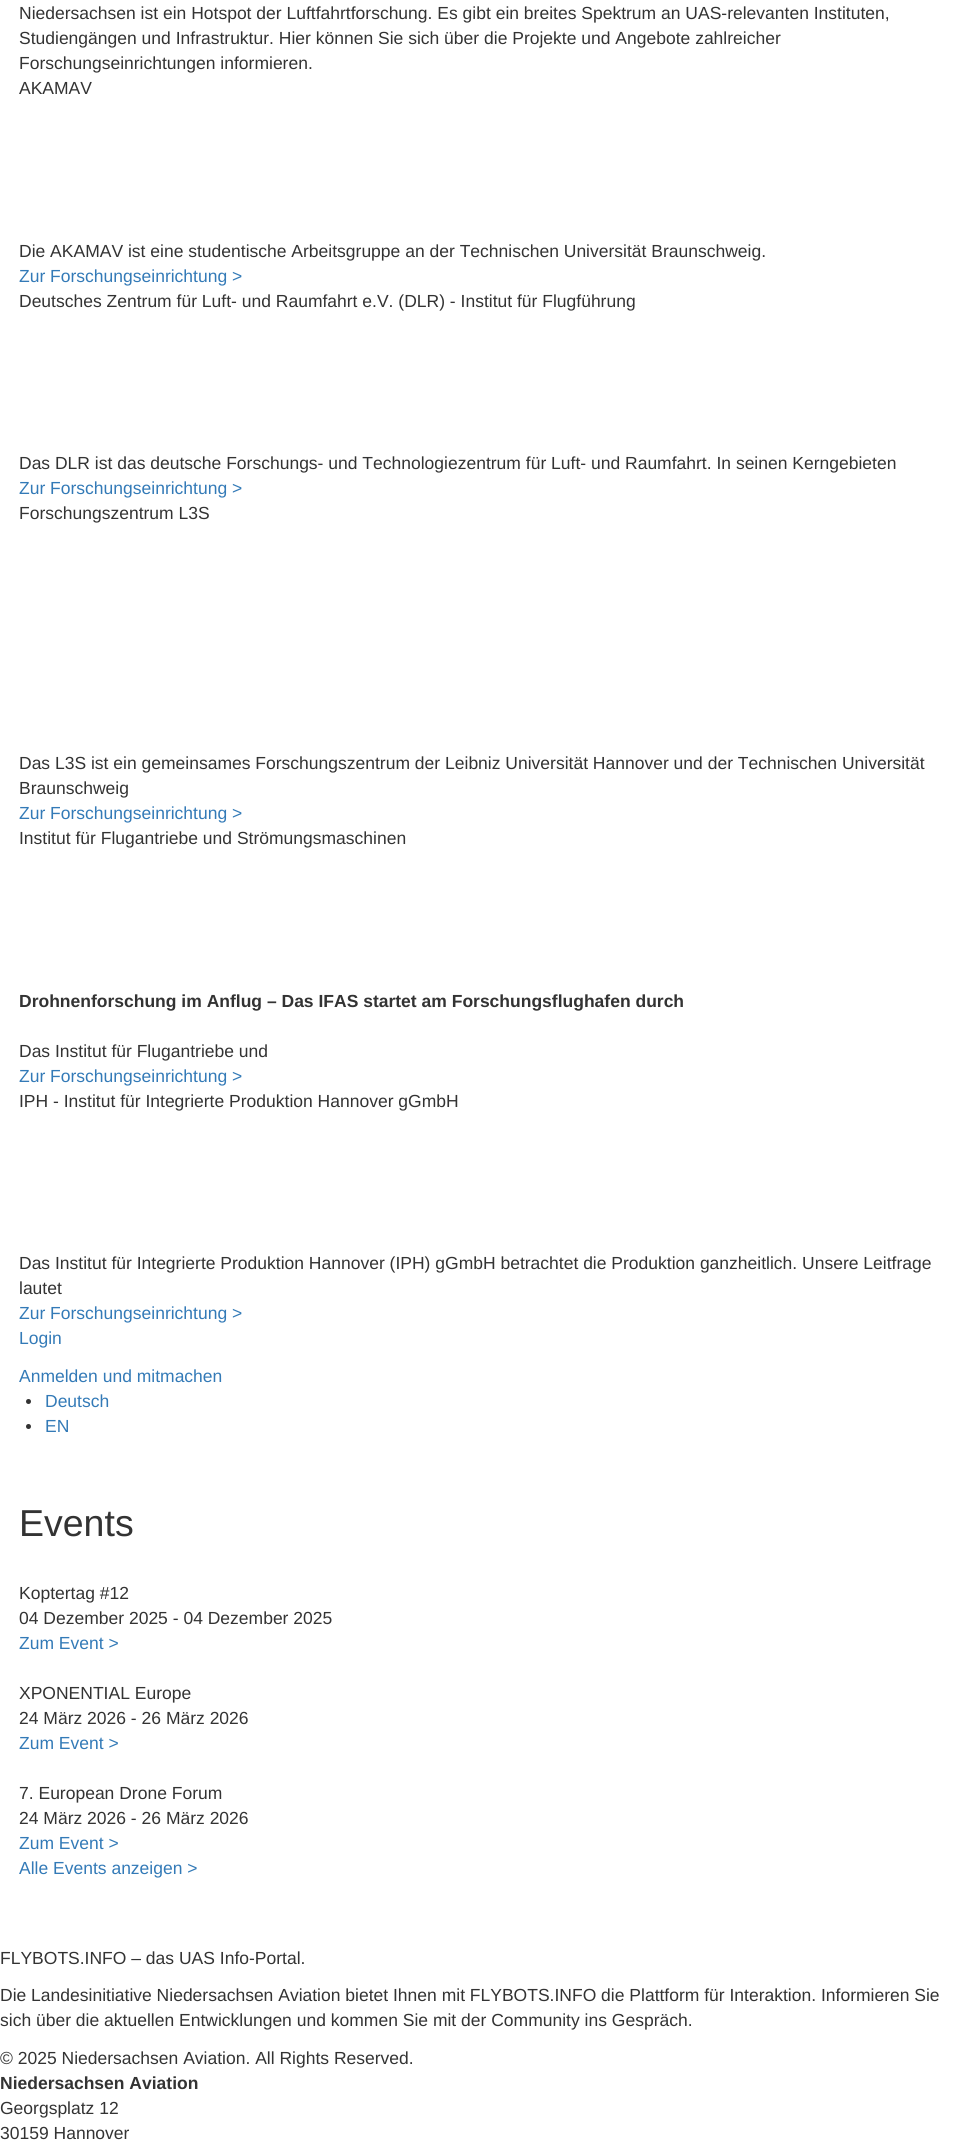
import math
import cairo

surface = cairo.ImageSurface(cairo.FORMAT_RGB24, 956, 2140)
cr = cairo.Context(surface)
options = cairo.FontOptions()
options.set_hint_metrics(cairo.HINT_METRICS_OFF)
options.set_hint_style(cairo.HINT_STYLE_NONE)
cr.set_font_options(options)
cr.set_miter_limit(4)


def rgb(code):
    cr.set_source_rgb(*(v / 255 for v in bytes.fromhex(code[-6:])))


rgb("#ffffff")
cr.paint()
rgb("#333333")
cr.arc(28.5, 1401.5, 2.5, 0, 2 * math.pi)
cr.fill()
cr.arc(28.5, 1426.5, 2.5, 0, 2 * math.pi)
cr.fill()
cr.select_font_face("Liberation Sans")
cr.set_font_size(17.5)
for x, y, s in [
    (19, 19, "Niedersachsen ist ein Hotspot der Luftfahrtforschung. Es gibt ein breites Spektrum an UAS-relevanten Instituten,"),
    (19, 44, "Studiengängen und Infrastruktur. Hier können Sie sich über die Projekte und Angebote zahlreicher"),
    (19, 69, "Forschungseinrichtungen informieren."),
    (19, 94, "AKAMAV"),
    (19, 257, "Die AKAMAV ist eine studentische Arbeitsgruppe an der Technischen Universität Braunschweig."),
]:
    cr.move_to(x, y)
    cr.show_text(s)
rgb("#337ab7")
cr.move_to(19, 282)
cr.show_text("Zur Forschungseinrichtung >")
rgb("#333333")
cr.move_to(19, 307)
cr.show_text("Deutsches Zentrum für Luft- und Raumfahrt e.V. (DLR) - Institut für Flugführung")
cr.move_to(19, 469)
cr.show_text("Das DLR ist das deutsche Forschungs- und Technologiezentrum für Luft- und Raumfahrt. In seinen Kerngebieten")
rgb("#337ab7")
cr.move_to(19, 494)
cr.show_text("Zur Forschungseinrichtung >")
rgb("#333333")
for x, y, s in [
    (19, 519, "Forschungszentrum L3S"),
    (19, 769, "Das L3S ist ein gemeinsames Forschungszentrum der Leibniz Universität Hannover und der Technischen Universität"),
    (19, 794, "Braunschweig"),
]:
    cr.move_to(x, y)
    cr.show_text(s)
rgb("#337ab7")
cr.move_to(19, 819)
cr.show_text("Zur Forschungseinrichtung >")
rgb("#333333")
cr.move_to(19, 844)
cr.show_text("Institut für Flugantriebe und Strömungsmaschinen")
cr.select_font_face("Liberation Sans", cairo.FONT_SLANT_NORMAL, cairo.FONT_WEIGHT_BOLD)
cr.move_to(19, 1007)
cr.show_text("Drohnenforschung im Anflug – Das IFAS startet am Forschungsflughafen durch")
cr.select_font_face("Liberation Sans")
cr.move_to(19, 1057)
cr.show_text("Das Institut für Flugantriebe und")
rgb("#337ab7")
cr.move_to(19, 1082)
cr.show_text("Zur Forschungseinrichtung >")
rgb("#333333")
for x, y, s in [
    (19, 1107, "IPH - Institut für Integrierte Produktion Hannover gGmbH"),
    (19, 1269, "Das Institut für Integrierte Produktion Hannover (IPH) gGmbH betrachtet die Produktion ganzheitlich. Unsere Leitfrage"),
    (19, 1294, "lautet"),
]:
    cr.move_to(x, y)
    cr.show_text(s)
rgb("#337ab7")
for x, y, s in [
    (19, 1319, "Zur Forschungseinrichtung >"),
    (19, 1344, "Login"),
    (19, 1382, "Anmelden und mitmachen"),
    (45, 1407, "Deutsch"),
    (45, 1432, "EN"),
]:
    cr.move_to(x, y)
    cr.show_text(s)
cr.set_font_size(37.5)
rgb("#333333")
cr.move_to(19, 1536)
cr.show_text("Events")
cr.set_font_size(17.5)
cr.move_to(19, 1599)
cr.show_text("Koptertag #12")
cr.move_to(19, 1624)
cr.show_text("04 Dezember 2025 - 04 Dezember 2025")
rgb("#337ab7")
cr.move_to(19, 1649)
cr.show_text("Zum Event >")
rgb("#333333")
cr.move_to(19, 1699)
cr.show_text("XPONENTIAL Europe")
cr.move_to(19, 1724)
cr.show_text("24 März 2026 - 26 März 2026")
rgb("#337ab7")
cr.move_to(19, 1749)
cr.show_text("Zum Event >")
rgb("#333333")
cr.move_to(19, 1799)
cr.show_text("7. European Drone Forum")
cr.move_to(19, 1824)
cr.show_text("24 März 2026 - 26 März 2026")
rgb("#337ab7")
cr.move_to(19, 1849)
cr.show_text("Zum Event >")
cr.move_to(19, 1874)
cr.show_text("Alle Events anzeigen >")
rgb("#333333")
for x, y, s in [
    (0, 1964, "FLYBOTS.INFO – das UAS Info-Portal."),
    (0, 2001, "Die Landesinitiative Niedersachsen Aviation bietet Ihnen mit FLYBOTS.INFO die Plattform für Interaktion. Informieren Sie"),
    (0, 2026, "sich über die aktuellen Entwicklungen und kommen Sie mit der Community ins Gespräch."),
    (0, 2064, "© 2025 Niedersachsen Aviation. All Rights Reserved."),
]:
    cr.move_to(x, y)
    cr.show_text(s)
cr.select_font_face("Liberation Sans", cairo.FONT_SLANT_NORMAL, cairo.FONT_WEIGHT_BOLD)
cr.move_to(0, 2089)
cr.show_text("Niedersachsen Aviation")
cr.select_font_face("Liberation Sans")
cr.move_to(0, 2114)
cr.show_text("Georgsplatz 12")
cr.move_to(0, 2139)
cr.show_text("30159 Hannover")
surface.write_to_png("page.png")
